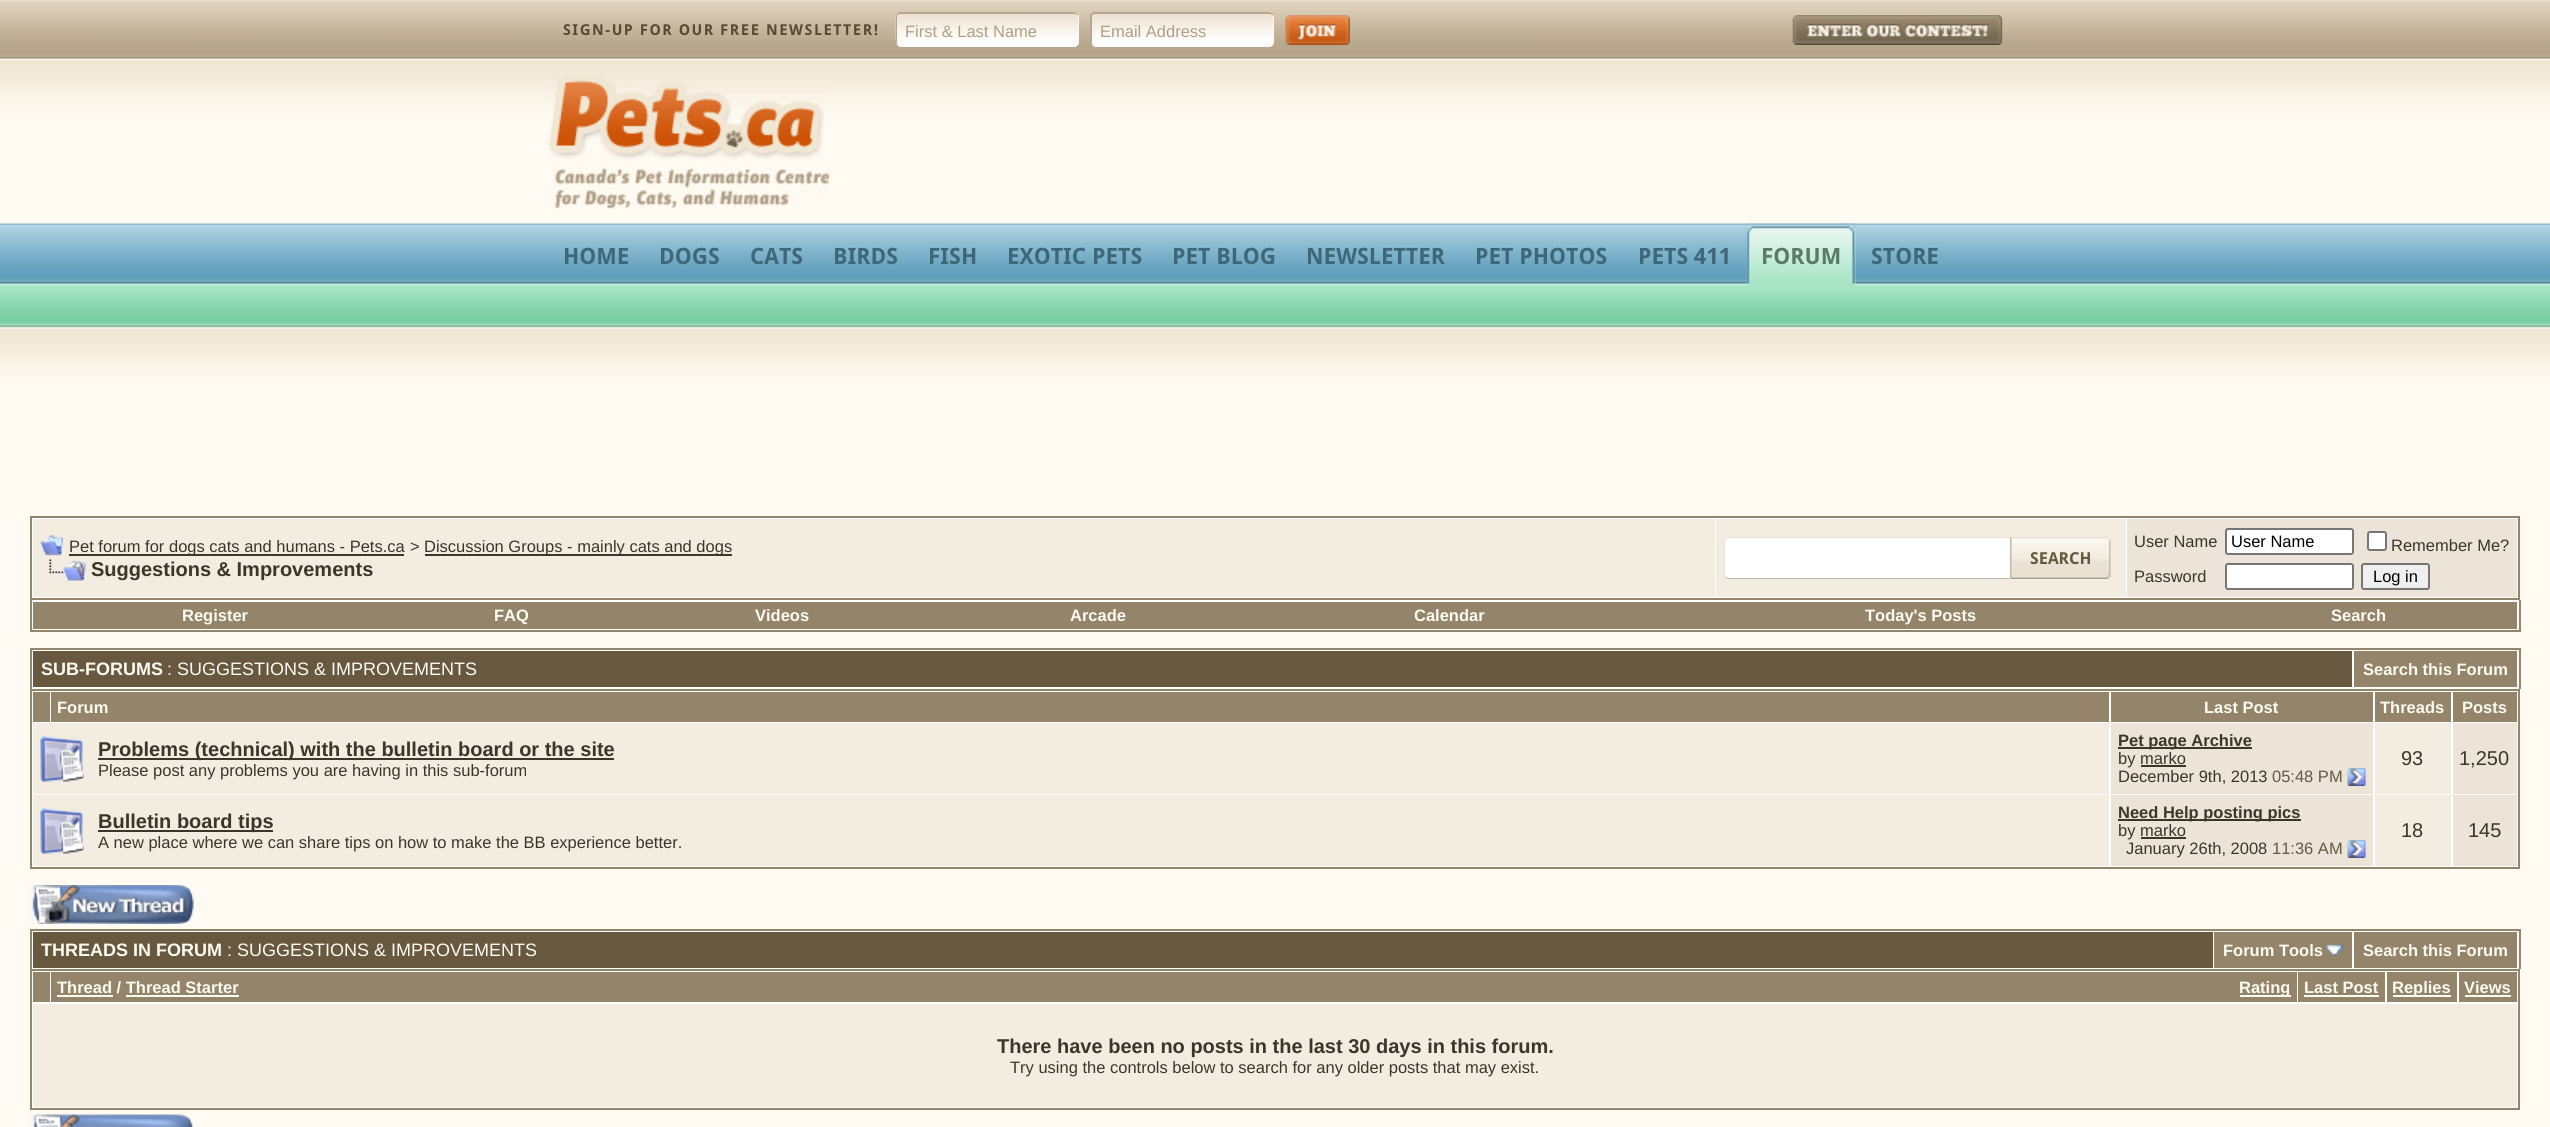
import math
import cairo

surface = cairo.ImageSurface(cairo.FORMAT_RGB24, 2550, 1127)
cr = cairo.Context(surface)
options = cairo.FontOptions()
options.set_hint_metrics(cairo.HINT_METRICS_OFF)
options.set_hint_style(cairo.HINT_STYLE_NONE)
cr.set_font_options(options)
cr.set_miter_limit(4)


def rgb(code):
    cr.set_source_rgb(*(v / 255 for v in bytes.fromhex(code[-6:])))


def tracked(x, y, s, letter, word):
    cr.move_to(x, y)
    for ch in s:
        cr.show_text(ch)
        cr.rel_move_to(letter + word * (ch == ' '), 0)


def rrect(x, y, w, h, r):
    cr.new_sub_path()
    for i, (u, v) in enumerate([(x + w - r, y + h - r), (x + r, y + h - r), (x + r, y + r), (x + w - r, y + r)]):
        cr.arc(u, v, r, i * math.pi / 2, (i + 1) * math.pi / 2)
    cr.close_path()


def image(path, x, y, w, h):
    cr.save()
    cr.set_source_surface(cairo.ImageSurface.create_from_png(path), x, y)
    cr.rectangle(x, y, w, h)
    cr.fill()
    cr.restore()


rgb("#fffaf2")
cr.paint()
image("img/1.png", 0, 0, 2550, 378)
rgb("#fefdfc")
rrect(896, 12, 183, 35, 5)
cr.fill()
image("img/2.png", 895, 13, 184, 28)
rgb("#b6a68f")
cr.set_fill_rule(cairo.FILL_RULE_EVEN_ODD)
cr.new_path()
cr.move_to(900, 12)
cr.line_to(1074, 12)
cr.curve_to(1076, 12, 1078, 14, 1078, 16)
cr.line_to(1078, 42)
cr.curve_to(1078, 44, 1076, 46, 1074, 46)
cr.line_to(900, 46)
cr.curve_to(898, 46, 896, 44, 896, 42)
cr.line_to(896, 16)
cr.curve_to(896, 14, 898, 12, 900, 12)
cr.close_path()
cr.move_to(900, 14)
cr.line_to(1074, 14)
cr.curve_to(1076, 14, 1078, 15, 1078, 16)
cr.line_to(1078, 42)
cr.curve_to(1078, 44, 1076, 46, 1074, 46)
cr.line_to(900, 46)
cr.curve_to(898, 46, 897, 44, 897, 42)
cr.line_to(897, 16)
cr.curve_to(897, 15, 898, 14, 900, 14)
cr.close_path()
cr.fill()
rgb("#fefdfc")
rrect(1091, 12, 183, 35, 5)
cr.fill()
image("img/3.png", 1090, 13, 184, 28)
rgb("#b6a68f")
cr.new_path()
cr.move_to(1095, 12)
cr.line_to(1269, 12)
cr.curve_to(1271, 12, 1274, 14, 1274, 16)
cr.line_to(1274, 42)
cr.curve_to(1274, 44, 1271, 46, 1269, 46)
cr.line_to(1095, 46)
cr.curve_to(1093, 46, 1090, 44, 1090, 42)
cr.line_to(1090, 16)
cr.curve_to(1090, 14, 1093, 12, 1095, 12)
cr.close_path()
cr.move_to(1095, 14)
cr.line_to(1269, 14)
cr.curve_to(1271, 14, 1274, 15, 1274, 16)
cr.line_to(1274, 42)
cr.curve_to(1274, 44, 1271, 46, 1269, 46)
cr.line_to(1095, 46)
cr.curve_to(1093, 46, 1092, 44, 1092, 42)
cr.line_to(1092, 16)
cr.curve_to(1092, 15, 1093, 14, 1095, 14)
cr.close_path()
cr.fill()
image("img/4.png", 1285, 15, 65, 30)
image("img/5.png", 1792, 15, 211, 30)
image("img/6.png", 548, 74, 282, 135)
image("img/7.png", 1746, 223, 110, 64)
image("img/8.png", 1840, 223, 16, 63)
rgb("#ffffff")
cr.rectangle(31, 517, 2488, 82)
cr.fill_preserve()
rgb("#94846a")
cr.stroke()
rgb("#f3ede1")
cr.rectangle(33, 519, 1682, 78)
cr.fill()
image("img/9.png", 40, 535, 23, 21)
rgb("#3b352a")
cr.rectangle(69, 554, 335, 2)
cr.fill()
cr.rectangle(425, 554, 307, 2)
cr.fill()
image("img/10.png", 49, 559, 37, 22)
rgb("#f3ede1")
cr.rectangle(1716, 519, 410, 78)
cr.fill()
rgb("#ffffff")
cr.new_path()
cr.move_to(1729, 537)
cr.line_to(2012, 537)
cr.line_to(2012, 579)
cr.line_to(1729, 579)
cr.curve_to(1726, 579, 1724, 577, 1724, 574)
cr.line_to(1724, 542)
cr.curve_to(1724, 539, 1726, 537, 1729, 537)
cr.close_path()
cr.fill()
rgb("#e7dfd2")
cr.set_fill_rule(cairo.FILL_RULE_WINDING)
cr.new_path()
cr.move_to(1728, 537)
cr.curve_to(1727, 537, 1726, 538, 1725, 539)
cr.line_to(1726, 539)
cr.line_to(1728, 538)
cr.line_to(2010, 538)
cr.line_to(2012, 537)
cr.close_path()
cr.fill()
rgb("#c0baaa")
cr.new_path()
cr.move_to(2012, 537)
cr.line_to(2012, 579)
cr.line_to(2010, 578)
cr.line_to(2010, 538)
cr.close_path()
cr.fill()
cr.new_path()
cr.move_to(2012, 579)
cr.line_to(2010, 578)
cr.line_to(1728, 578)
cr.line_to(1726, 577)
cr.line_to(1725, 577)
cr.curve_to(1726, 578, 1727, 579, 1728, 579)
cr.close_path()
cr.fill()
rgb("#e7dfd4")
cr.new_path()
cr.move_to(1725, 538.5)
cr.curve_to(1724.5, 539.5, 1724, 540.5, 1724, 542)
cr.line_to(1724, 574)
cr.curve_to(1724, 575.5, 1724.5, 576.5, 1725, 577.5)
cr.line_to(1726, 577)
cr.curve_to(1725, 576, 1725, 575, 1725, 574)
cr.line_to(1725, 542)
cr.curve_to(1725, 541, 1725, 540, 1726, 539)
cr.close_path()
cr.fill()
image("img/11.png", 2011, 537, 100, 42)
rgb("#ece4d9")
cr.rectangle(2127, 519, 390, 78)
cr.fill()
rgb("#ffffff")
rrect(2226, 529, 127, 25, 2)
cr.fill_preserve()
rgb("#767676")
cr.stroke()
rgb("#ffffff")
rrect(2368, 532, 18, 18, 2)
cr.fill_preserve()
rgb("#767676")
cr.stroke()
rgb("#ffffff")
rrect(2226, 564, 127, 25, 2)
cr.fill_preserve()
rgb("#767676")
cr.stroke()
rgb("#efefef")
rrect(2362, 564, 67, 25, 2)
cr.fill_preserve()
rgb("#767676")
cr.stroke()
for x, y, w, h, color in [
    (32, 600, 2487, 30, "#ffffff"),
    (2519, 600, 2, 32, "#94846a"),
    (30, 630, 2490, 2, "#94846a"),
    (30, 600, 2, 32, "#94846a"),
    (33, 602, 2484, 27, "#94846a"),
    (32, 650, 2487, 39, "#ffffff"),
    (30, 648, 2490, 2, "#94846a"),
    (2519, 648, 2, 41, "#94846a"),
    (30, 648, 2, 41, "#94846a"),
    (33, 651, 2319, 36, "#67583f"),
    (2354, 651, 163, 36, "#94846a"),
]:
    rgb(color)
    cr.rectangle(x, y, w, h)
    cr.fill()
rgb("#ffffff")
cr.rectangle(31, 690, 2488, 178)
cr.fill_preserve()
rgb("#94846a")
cr.stroke()
for x, y, w, h, color in [
    (33, 692, 17, 30, "#94846a"),
    (51, 692, 2058, 30, "#94846a"),
    (2111, 692, 262, 30, "#94846a"),
    (2375, 692, 76, 30, "#94846a"),
    (2453, 692, 64, 30, "#94846a"),
    (33, 723, 2076, 71, "#f3ede1"),
]:
    rgb(color)
    cr.rectangle(x, y, w, h)
    cr.fill()
image("img/12.png", 40, 736, 44, 46)
for x, y, w, h, color in [
    (98, 758, 516, 2, "#3b352a"),
    (2111, 723, 262, 71, "#ece4d9"),
    (2118, 747, 134, 2, "#3b352a"),
    (2141, 765, 45, 2, "#3b352a"),
]:
    rgb(color)
    cr.rectangle(x, y, w, h)
    cr.fill()
image("img/13.png", 2347, 768, 19, 18)
for x, y, w, h, color in [
    (2375, 723, 76, 71, "#f3ede1"),
    (2453, 723, 64, 71, "#ece4d9"),
    (33, 795, 2076, 71, "#f3ede1"),
]:
    rgb(color)
    cr.rectangle(x, y, w, h)
    cr.fill()
image("img/12.png", 40, 808, 44, 46)
for x, y, w, h, color in [
    (98, 830, 175, 2, "#3b352a"),
    (2111, 795, 262, 71, "#ece4d9"),
    (2118, 819, 183, 2, "#3b352a"),
    (2141, 837, 45, 2, "#3b352a"),
]:
    rgb(color)
    cr.rectangle(x, y, w, h)
    cr.fill()
image("img/13.png", 2347, 840, 19, 18)
rgb("#f3ede1")
cr.rectangle(2375, 795, 76, 71)
cr.fill()
rgb("#ece4d9")
cr.rectangle(2453, 795, 64, 71)
cr.fill()
image("img/14.png", 31, 885, 163, 39)
for x, y, w, h, color in [
    (32, 931, 2487, 38, "#ffffff"),
    (30, 929, 2490, 2, "#94846a"),
    (2519, 929, 2, 40, "#94846a"),
    (30, 929, 2, 40, "#94846a"),
    (33, 932, 2180, 36, "#67583f"),
    (2214, 932, 138, 36, "#94846a"),
]:
    rgb(color)
    cr.rectangle(x, y, w, h)
    cr.fill()
image("img/15.png", 2326, 945, 17, 11)
cr.rectangle(2354, 932, 163, 36)
cr.fill()
rgb("#ffffff")
cr.rectangle(31, 970, 2488, 139)
cr.fill_preserve()
rgb("#94846a")
cr.stroke()
for x, y, w, h, color in [
    (33, 972, 17, 30, "#94846a"),
    (51, 972, 2246, 30, "#94846a"),
    (57, 995, 56, 2, "#fffaf2"),
    (2240, 995, 51, 2, "#fffaf2"),
    (126, 995, 113, 2, "#fffaf2"),
    (2298, 972, 87, 30, "#94846a"),
    (2304, 995, 75, 2, "#fffaf2"),
    (2387, 972, 70, 30, "#94846a"),
    (2393, 995, 58, 2, "#fffaf2"),
    (2459, 972, 58, 30, "#94846a"),
    (2465, 995, 46, 2, "#fffaf2"),
    (33, 1004, 2484, 103, "#f3ede1"),
]:
    rgb(color)
    cr.rectangle(x, y, w, h)
    cr.fill()
image("img/16.png", 31, 1114, 163, 13)
cr.select_font_face("Droid Sans", cairo.FONT_SLANT_NORMAL, cairo.FONT_WEIGHT_BOLD)
cr.set_font_size(15)
rgb("#584b35")
tracked(563, 35, "SIGN-UP FOR OUR FREE NEWSLETTER!", 1.5, 0)
cr.select_font_face("Liberation Sans")
cr.set_font_size(16.5)
rgb("#b09f82")
cr.move_to(905, 37)
cr.show_text("First & Last Name")
cr.move_to(1100, 37)
cr.show_text("Email Address")
cr.select_font_face("Droid Sans", cairo.FONT_SLANT_NORMAL, cairo.FONT_WEIGHT_BOLD)
cr.set_font_size(22.5)
rgb("#3e687a")
for x, y, s in [
    (563, 264, "HOME"),
    (659, 264, "DOGS"),
    (750, 264, "CATS"),
    (833, 264, "BIRDS"),
    (928, 264, "FISH"),
    (1007, 264, "EXOTIC PETS"),
    (1172, 264, "PET BLOG"),
    (1306, 264, "NEWSLETTER"),
    (1475, 264, "PET PHOTOS"),
    (1638, 264, "PETS 411"),
]:
    cr.move_to(x, y)
    cr.show_text(s)
rgb("#5a7b6b")
cr.move_to(1761, 264)
cr.show_text("FORUM")
rgb("#3e687a")
cr.move_to(1871, 264)
cr.show_text("STORE")
cr.select_font_face("Liberation Sans")
cr.set_font_size(16.5)
rgb("#3b352a")
for x, y, s in [
    (69, 552, "Pet forum for dogs cats and humans - Pets.ca"),
    (410, 552, ">"),
    (424, 552, "Discussion Groups - mainly cats and dogs"),
]:
    cr.move_to(x, y)
    cr.show_text(s)
cr.select_font_face("Liberation Sans", cairo.FONT_SLANT_NORMAL, cairo.FONT_WEIGHT_BOLD)
cr.set_font_size(20)
cr.move_to(91, 576)
cr.show_text("Suggestions & Improvements")
cr.select_font_face("Droid Sans", cairo.FONT_SLANT_NORMAL, cairo.FONT_WEIGHT_BOLD)
cr.set_font_size(16.5)
rgb("#67583f")
cr.move_to(2030, 564)
cr.show_text("SEARCH")
cr.select_font_face("Liberation Sans")
rgb("#3b352a")
cr.move_to(2134, 547)
cr.show_text("User Name")
rgb("#000000")
cr.move_to(2231, 547)
cr.show_text("User Name")
rgb("#3b352a")
cr.move_to(2391, 551)
cr.show_text("Remember Me?")
cr.move_to(2134, 582)
cr.show_text("Password")
rgb("#000000")
cr.move_to(2373, 582)
cr.show_text("Log in")
cr.select_font_face("Liberation Sans", cairo.FONT_SLANT_NORMAL, cairo.FONT_WEIGHT_BOLD)
rgb("#fffaf2")
for x, y, s in [
    (182, 621, "Register"),
    (494, 621, "FAQ"),
    (755, 621, "Videos"),
    (1070, 621, "Arcade"),
    (1414, 621, "Calendar"),
    (1865, 621, "Today's Posts"),
    (2331, 621, "Search"),
]:
    cr.move_to(x, y)
    cr.show_text(s)
cr.set_font_size(18)
cr.move_to(41, 675)
cr.show_text("SUB-FORUMS")
cr.select_font_face("Liberation Sans")
cr.move_to(167, 675)
cr.show_text(": SUGGESTIONS & IMPROVEMENTS")
cr.select_font_face("Liberation Sans", cairo.FONT_SLANT_NORMAL, cairo.FONT_WEIGHT_BOLD)
cr.set_font_size(16.5)
for x, y, s in [
    (2363, 675, "Search this Forum"),
    (57, 713, "Forum"),
    (2204, 713, "Last Post"),
    (2380, 713, "Threads"),
    (2462, 713, "Posts"),
]:
    cr.move_to(x, y)
    cr.show_text(s)
cr.set_font_size(20)
rgb("#3b352a")
cr.move_to(98, 756)
cr.show_text("Problems (technical) with the bulletin board or the site")
cr.select_font_face("Liberation Sans")
cr.set_font_size(16.5)
cr.move_to(98, 776)
cr.show_text("Please post any problems you are having in this sub-forum")
cr.select_font_face("Liberation Sans", cairo.FONT_SLANT_NORMAL, cairo.FONT_WEIGHT_BOLD)
cr.move_to(2118, 746)
cr.show_text("Pet page Archive")
cr.select_font_face("Liberation Sans")
cr.move_to(2118, 764)
cr.show_text("by marko")
cr.move_to(2118, 782)
cr.show_text("December 9th, 2013")
rgb("#67583f")
cr.move_to(2272, 782)
cr.show_text("05:48 PM")
cr.set_font_size(20)
rgb("#3b352a")
cr.move_to(2401, 765)
cr.show_text("93")
cr.move_to(2459, 765)
cr.show_text("1,250")
cr.select_font_face("Liberation Sans", cairo.FONT_SLANT_NORMAL, cairo.FONT_WEIGHT_BOLD)
cr.move_to(98, 828)
cr.show_text("Bulletin board tips")
cr.select_font_face("Liberation Sans")
cr.set_font_size(16.5)
cr.move_to(98, 848)
cr.show_text("A new place where we can share tips on how to make the BB experience better.")
cr.select_font_face("Liberation Sans", cairo.FONT_SLANT_NORMAL, cairo.FONT_WEIGHT_BOLD)
cr.move_to(2118, 818)
cr.show_text("Need Help posting pics")
cr.select_font_face("Liberation Sans")
cr.move_to(2118, 836)
cr.show_text("by marko")
cr.move_to(2126, 854)
cr.show_text("January 26th, 2008")
rgb("#67583f")
cr.move_to(2272, 854)
cr.show_text("11:36 AM")
cr.set_font_size(20)
rgb("#3b352a")
cr.move_to(2401, 837)
cr.show_text("18")
cr.move_to(2468, 837)
cr.show_text("145")
cr.select_font_face("Liberation Sans", cairo.FONT_SLANT_NORMAL, cairo.FONT_WEIGHT_BOLD)
cr.set_font_size(18)
rgb("#fffaf2")
cr.move_to(41, 956)
cr.show_text("THREADS IN FORUM")
cr.select_font_face("Liberation Sans")
cr.move_to(227, 956)
cr.show_text(": SUGGESTIONS & IMPROVEMENTS")
cr.select_font_face("Liberation Sans", cairo.FONT_SLANT_NORMAL, cairo.FONT_WEIGHT_BOLD)
cr.set_font_size(16.5)
for x, y, s in [
    (2223, 956, "Forum Tools"),
    (2363, 956, "Search this Forum"),
    (57, 993, "Thread / Thread Starter"),
    (2239, 993, "Rating"),
    (2304, 993, "Last Post"),
    (2392, 993, "Replies"),
    (2464, 993, "Views"),
]:
    cr.move_to(x, y)
    cr.show_text(s)
cr.set_font_size(20)
rgb("#3b352a")
cr.move_to(997, 1053)
cr.show_text("There have been no posts in the last 30 days in this forum.")
cr.select_font_face("Liberation Sans")
cr.set_font_size(16.5)
cr.move_to(1010, 1073)
cr.show_text("Try using the controls below to search for any older posts that may exist.")
surface.write_to_png("page.png")
